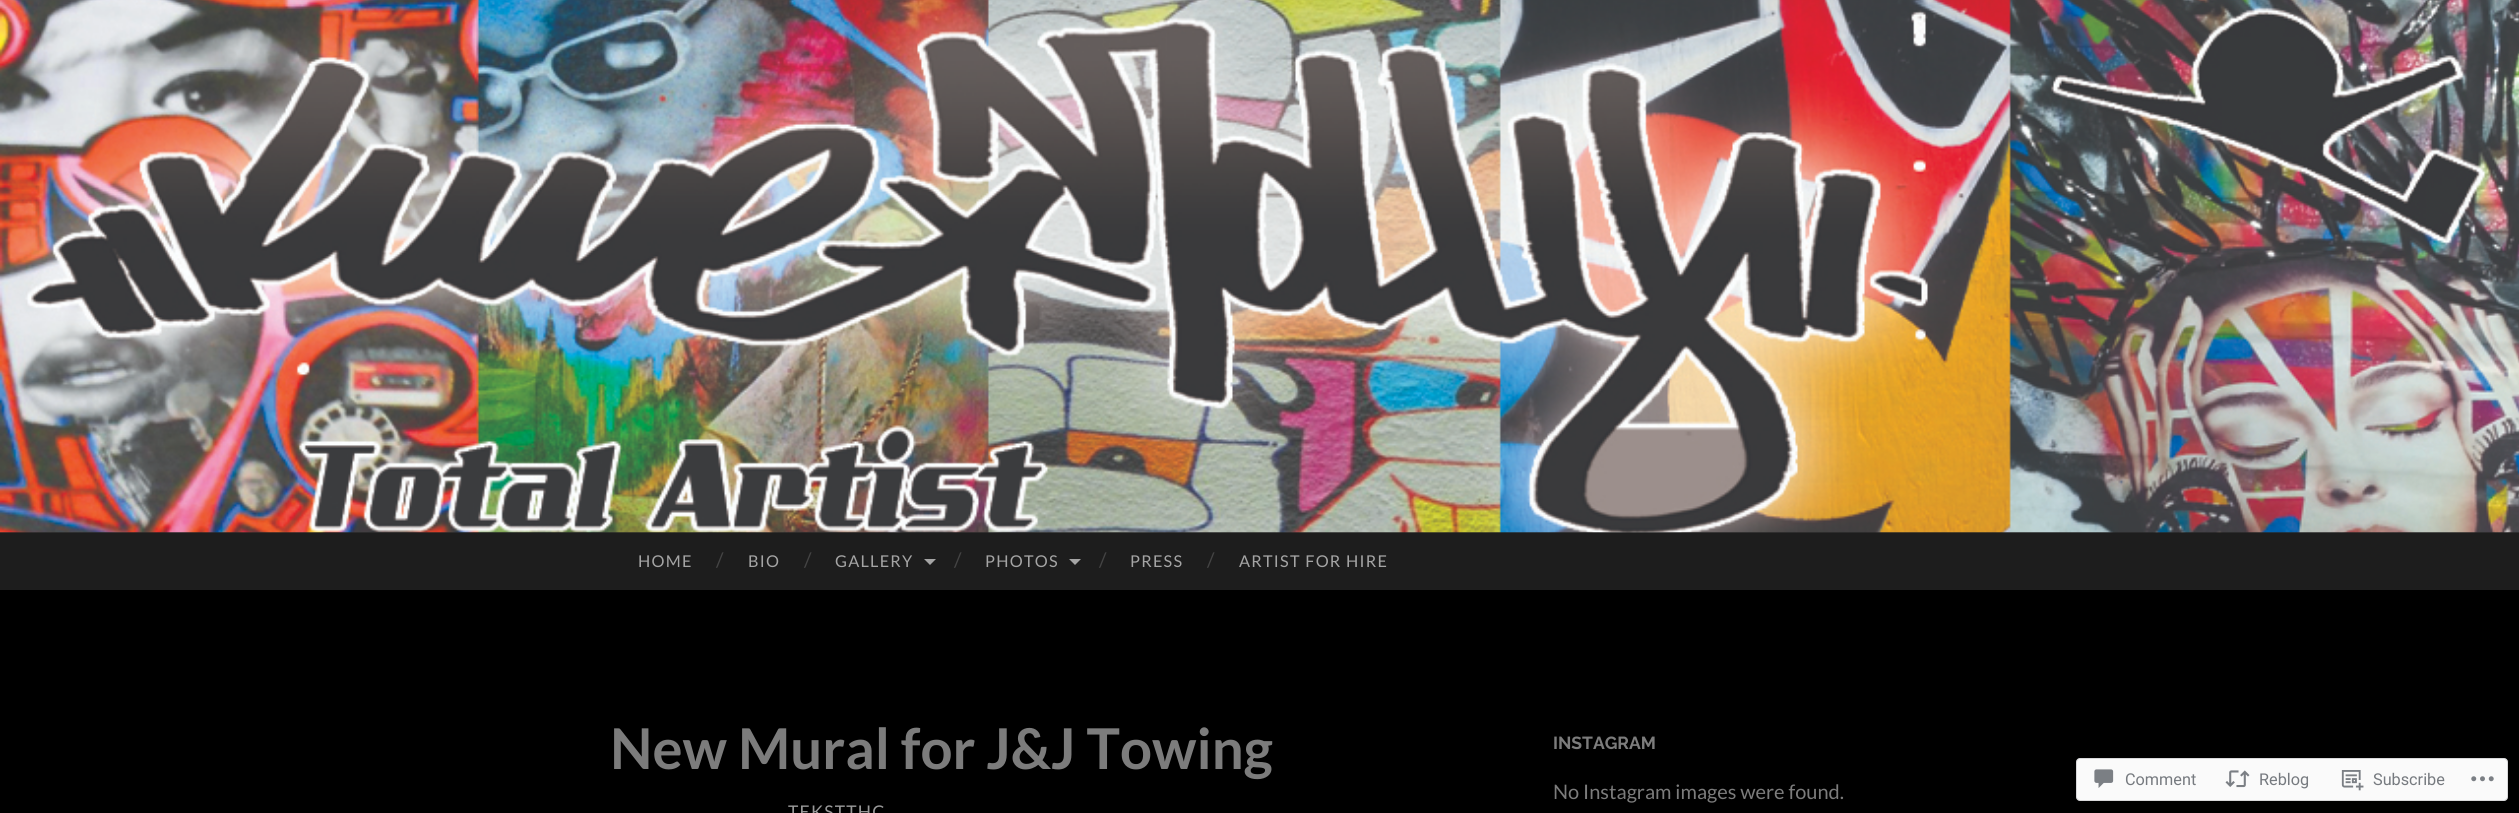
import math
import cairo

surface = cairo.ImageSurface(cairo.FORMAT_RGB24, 2519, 813)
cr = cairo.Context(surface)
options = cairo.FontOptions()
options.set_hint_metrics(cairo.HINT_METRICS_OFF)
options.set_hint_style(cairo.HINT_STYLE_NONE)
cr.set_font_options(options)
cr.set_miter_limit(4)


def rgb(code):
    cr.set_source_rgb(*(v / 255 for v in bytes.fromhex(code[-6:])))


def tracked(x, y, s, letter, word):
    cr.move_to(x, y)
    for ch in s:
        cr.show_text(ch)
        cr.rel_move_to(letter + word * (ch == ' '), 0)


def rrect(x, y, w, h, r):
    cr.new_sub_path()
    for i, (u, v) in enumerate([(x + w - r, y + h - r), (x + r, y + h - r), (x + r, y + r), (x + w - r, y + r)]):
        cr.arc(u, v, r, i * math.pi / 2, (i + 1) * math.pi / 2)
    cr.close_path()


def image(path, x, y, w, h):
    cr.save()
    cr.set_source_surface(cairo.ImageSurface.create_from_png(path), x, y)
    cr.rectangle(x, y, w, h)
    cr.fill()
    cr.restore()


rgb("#000000")
cr.paint()
rgb("#262626")
cr.rectangle(0, 532, 2519, 1)
cr.fill()
image("img/1.png", 0, 0, 2519, 533)
rgb("#1d1d1d")
cr.rectangle(0, 533, 2519, 57)
cr.fill()
rgb("#a5a5a5")
cr.new_path()
cr.move_to(924, 559)
cr.line_to(936, 559)
cr.line_to(930, 565)
cr.close_path()
cr.fill()
cr.new_path()
cr.move_to(1069, 559)
cr.line_to(1081, 559)
cr.line_to(1075, 565)
cr.close_path()
cr.fill()
rgb("#fafafa")
rrect(2076.5, 758.5, 431, 42, 3.5)
cr.fill_preserve()
rgb("#d8d8da")
cr.set_line_width(1)
cr.stroke()
image("img/2.png", 2094, 769, 20, 19)
image("img/3.png", 2225, 770, 25, 18)
image("img/4.png", 2341, 770, 23, 21)
image("img/5.png", 2471, 776, 23, 6)
cr.select_font_face("Lato")
cr.set_font_size(16.25)
rgb("#a5a5a5")
tracked(638, 567, "HOME", 1.25, 0)
cr.set_font_size(20)
rgb("#444444")
cr.move_to(716, 567)
cr.show_text("/")
cr.set_font_size(16.25)
rgb("#a5a5a5")
tracked(748, 567, "BIO", 1.25, 0)
cr.set_font_size(20)
rgb("#444444")
cr.move_to(804, 567)
cr.show_text("/")
cr.set_font_size(16.25)
rgb("#a5a5a5")
tracked(835, 567, "GALLERY", 1.25, 0)
cr.set_font_size(20)
rgb("#444444")
cr.move_to(954, 567)
cr.show_text("/")
cr.set_font_size(16.25)
rgb("#a5a5a5")
tracked(985, 567, "PHOTOS", 1.25, 0)
cr.set_font_size(20)
rgb("#444444")
cr.move_to(1099, 567)
cr.show_text("/")
cr.set_font_size(16.25)
rgb("#a5a5a5")
tracked(1130, 567, "PRESS", 1.25, 0)
cr.set_font_size(20)
rgb("#444444")
cr.move_to(1207, 567)
cr.show_text("/")
cr.set_font_size(16.25)
rgb("#a5a5a5")
tracked(1239, 567, "ARTIST FOR HIRE", 1.25, 0)
cr.select_font_face("Lato", cairo.FONT_SLANT_NORMAL, cairo.FONT_WEIGHT_BOLD)
cr.set_font_size(56.25)
rgb("#7c7c7c")
cr.move_to(610, 769)
cr.show_text("New Mural for J&J Towing")
cr.select_font_face("Lato")
cr.set_font_size(17.5)
rgb("#999999")
tracked(788, 818, "TEKSTTHC", 1.25, 0)
cr.select_font_face("Raleway", cairo.FONT_SLANT_NORMAL, cairo.FONT_WEIGHT_BOLD)
rgb("#7c7c7c")
cr.move_to(1553, 749)
cr.show_text("INSTAGRAM")
cr.select_font_face("Lato")
cr.set_font_size(20)
cr.move_to(1553, 799)
cr.show_text("No Instagram images were found.")
cr.select_font_face("Roboto")
cr.set_font_size(16.25)
rgb("#767a7f")
for x, y, s in [
    (2125, 785, "Comment"),
    (2259, 785, "Reblog"),
    (2373, 785, "Subscribe"),
]:
    cr.move_to(x, y)
    cr.show_text(s)
surface.write_to_png("page.png")
